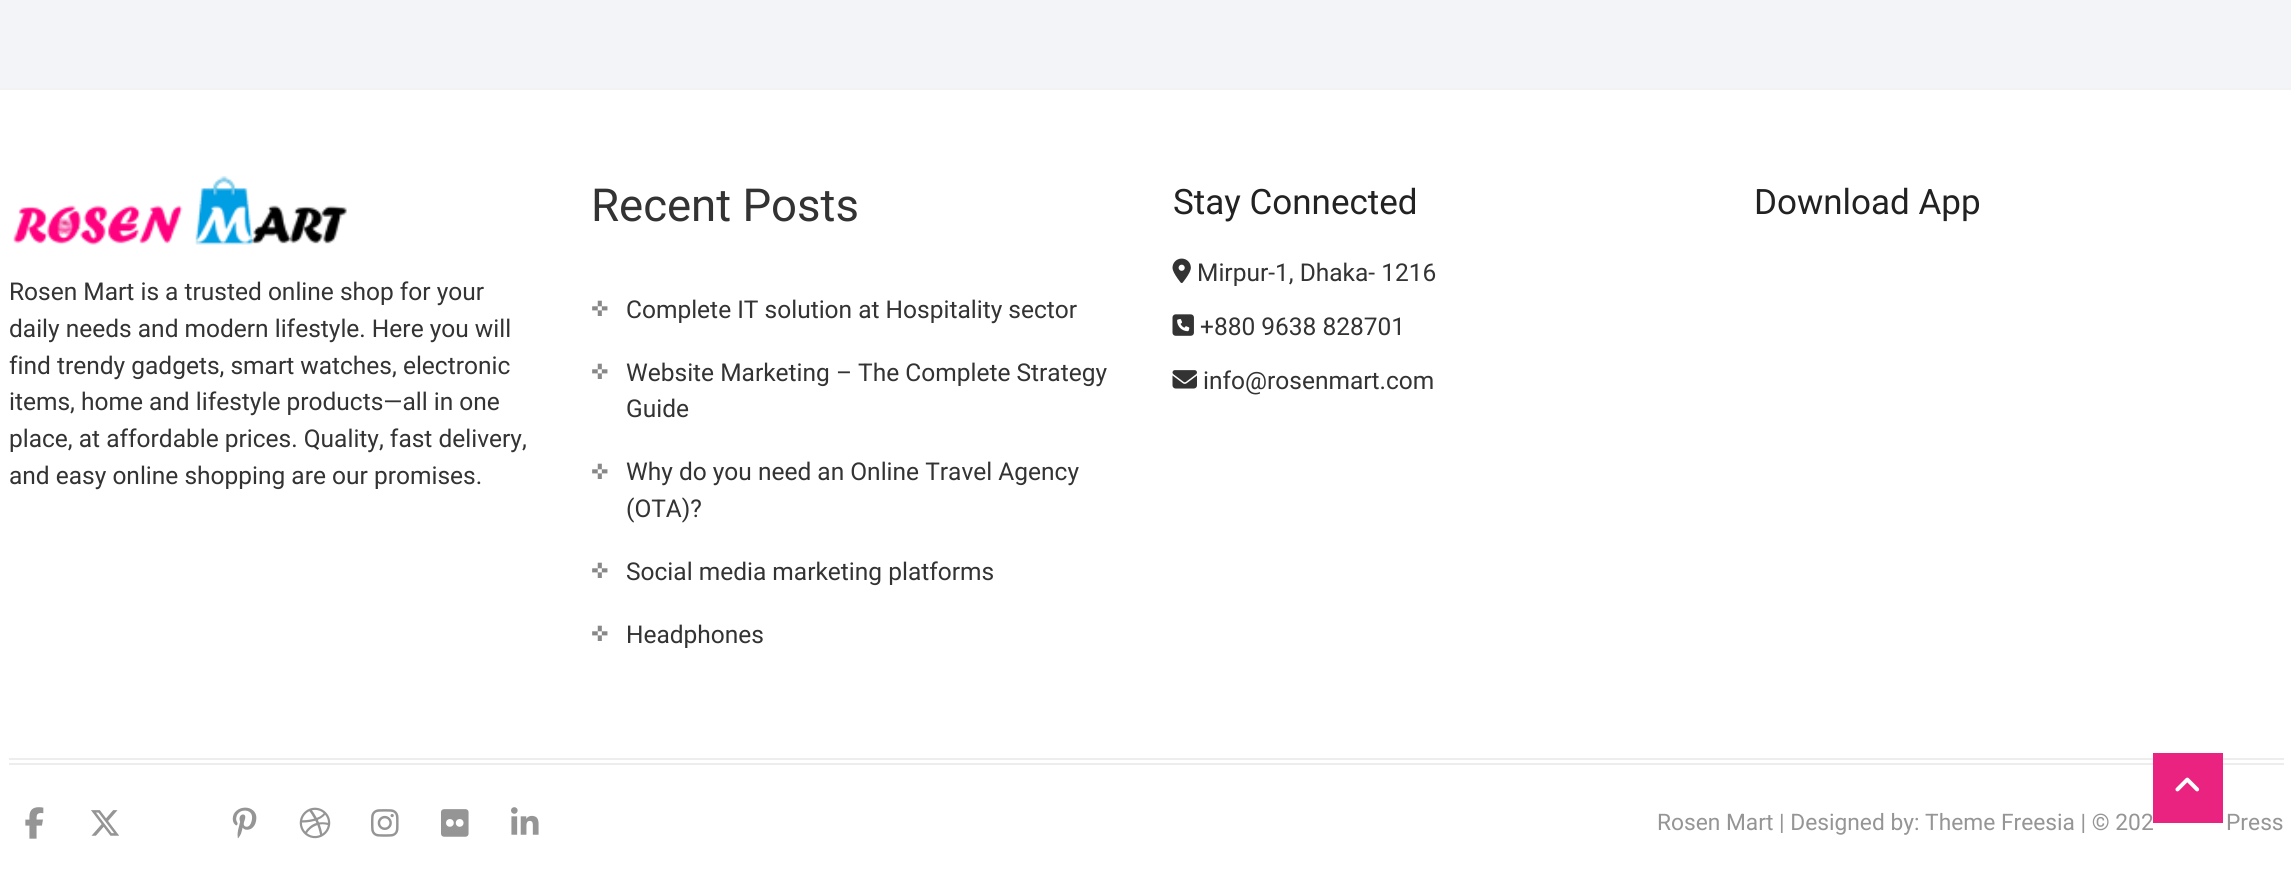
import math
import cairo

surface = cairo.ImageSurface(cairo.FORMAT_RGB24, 2291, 891)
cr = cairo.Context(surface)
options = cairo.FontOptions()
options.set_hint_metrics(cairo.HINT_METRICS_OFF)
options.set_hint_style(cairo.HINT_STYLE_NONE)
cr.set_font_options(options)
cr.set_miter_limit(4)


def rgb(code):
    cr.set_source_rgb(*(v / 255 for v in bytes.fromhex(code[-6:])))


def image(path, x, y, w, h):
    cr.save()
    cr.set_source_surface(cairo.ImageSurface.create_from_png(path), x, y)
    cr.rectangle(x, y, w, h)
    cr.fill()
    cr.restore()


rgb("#f3f4f8")
cr.paint()
rgb("#ffffff")
cr.rectangle(0, 90, 2291, 801)
cr.fill()
rgb("#f2f2f2")
cr.rectangle(0, 88, 2291, 2)
cr.fill()
image("img/1.png", 13, 176, 334, 69)
image("img/2.png", 1172, 258, 19, 25)
image("img/3.png", 1172, 314, 22, 22)
image("img/4.png", 1172, 370, 25, 19)
rgb("#ededed")
cr.rectangle(9, 763, 2275, 2)
cr.fill()
cr.rectangle(9, 758, 2275, 2)
cr.fill()
image("img/6.png", 25, 807, 19, 32)
image("img/7.png", 91, 810, 28, 26)
image("img/8.png", 232, 807, 25, 32)
image("img/9.png", 299, 807, 32, 32)
image("img/10.png", 371, 809, 28, 28)
image("img/11.png", 441, 809, 28, 28)
image("img/12.png", 511, 807, 28, 28)
cr.select_font_face("Roboto")
cr.set_font_size(24.5)
rgb("#333333")
for x, y, s in [
    (9, 300, "Rosen Mart is a trusted online shop for your"),
    (9, 337, "daily needs and modern lifestyle. Here you will"),
    (9, 374, "find trendy gadgets, smart watches, electronic"),
    (9, 410, "items, home and lifestyle products—all in one"),
    (9, 447, "place, at affordable prices. Quality, fast delivery,"),
    (9, 484, "and easy online shopping are our promises."),
]:
    cr.move_to(x, y)
    cr.show_text(s)
cr.set_font_size(45.5)
cr.move_to(591, 221)
cr.show_text("Recent Posts")
cr.select_font_face("DejaVu Sans")
cr.set_font_size(21)
rgb("#888888")
cr.move_to(591, 316)
cr.show_text("✜")
cr.select_font_face("Roboto")
cr.set_font_size(24.5)
rgb("#333333")
cr.move_to(626, 318)
cr.show_text("Complete IT solution at Hospitality sector")
cr.select_font_face("DejaVu Sans")
cr.set_font_size(21)
rgb("#888888")
cr.move_to(591, 379)
cr.show_text("✜")
cr.select_font_face("Roboto")
cr.set_font_size(24.5)
rgb("#333333")
cr.move_to(626, 381)
cr.show_text("Website Marketing – The Complete Strategy")
cr.move_to(626, 417)
cr.show_text("Guide")
cr.select_font_face("DejaVu Sans")
cr.set_font_size(21)
rgb("#888888")
cr.move_to(591, 479)
cr.show_text("✜")
cr.select_font_face("Roboto")
cr.set_font_size(24.5)
rgb("#333333")
cr.move_to(626, 480)
cr.show_text("Why do you need an Online Travel Agency")
cr.move_to(626, 517)
cr.show_text("(OTA)?")
cr.select_font_face("DejaVu Sans")
cr.set_font_size(21)
rgb("#888888")
cr.move_to(591, 578)
cr.show_text("✜")
cr.select_font_face("Roboto")
cr.set_font_size(24.5)
rgb("#333333")
cr.move_to(626, 580)
cr.show_text("Social media marketing platforms")
cr.select_font_face("DejaVu Sans")
cr.set_font_size(21)
rgb("#888888")
cr.move_to(591, 641)
cr.show_text("✜")
cr.select_font_face("Roboto")
cr.set_font_size(24.5)
rgb("#333333")
cr.move_to(626, 643)
cr.show_text("Headphones")
cr.set_font_size(35)
rgb("#222222")
cr.move_to(1173, 214)
cr.show_text("Stay Connected")
cr.set_font_size(24.5)
rgb("#333333")
for x, y, s in [
    (1197, 281, "Mirpur-1, Dhaka- 1216"),
    (1200, 335, "+880 9638 828701"),
    (1203, 389, "info@rosenmart.com"),
]:
    cr.move_to(x, y)
    cr.show_text(s)
cr.set_font_size(35)
rgb("#222222")
cr.move_to(1754, 214)
cr.show_text("Download App")
cr.set_font_size(22.75)
rgb("#969595")
cr.move_to(1657, 830)
cr.show_text("Rosen Mart | Designed by: Theme Freesia | © 202")
rgb("#ea2380")
cr.rectangle(2153, 753, 70, 70)
cr.fill()
image("img/5.png", 2175, 777, 25, 15)
rgb("#969595")
cr.move_to(2226, 830)
cr.show_text("Press")
surface.write_to_png("page.png")
